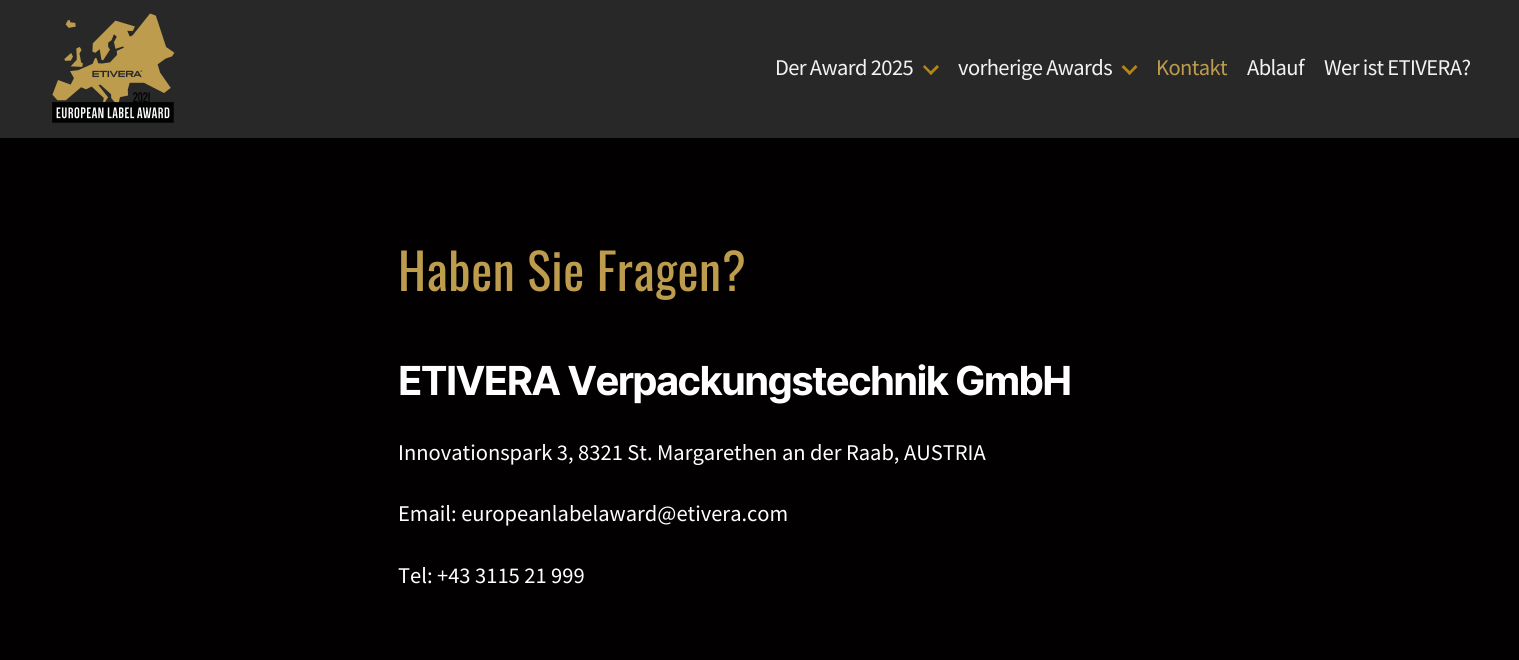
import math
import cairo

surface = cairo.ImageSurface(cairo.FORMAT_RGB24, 1519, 660)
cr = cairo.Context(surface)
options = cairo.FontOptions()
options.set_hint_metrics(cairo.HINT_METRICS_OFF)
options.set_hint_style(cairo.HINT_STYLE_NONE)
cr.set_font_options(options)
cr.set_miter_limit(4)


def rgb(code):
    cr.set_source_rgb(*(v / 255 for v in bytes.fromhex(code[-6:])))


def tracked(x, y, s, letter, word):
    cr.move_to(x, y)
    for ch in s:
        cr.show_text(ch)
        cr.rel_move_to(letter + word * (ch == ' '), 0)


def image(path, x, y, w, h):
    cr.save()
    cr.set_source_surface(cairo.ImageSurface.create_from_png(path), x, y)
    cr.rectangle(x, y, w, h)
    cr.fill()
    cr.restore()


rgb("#020000")
cr.paint()
rgb("#282828")
cr.rectangle(0, 0, 1519, 138)
cr.fill()
image("img/1.png", 52, 13, 123, 110)
rgb("#b68615")
cr.new_path()
cr.move_to(923, 67)
cr.line_to(924.5, 65)
cr.line_to(932.5, 73)
cr.line_to(931, 75)
cr.close_path()
cr.fill()
cr.new_path()
cr.move_to(929, 73)
cr.line_to(937, 65)
cr.line_to(939, 67)
cr.line_to(931, 75)
cr.close_path()
cr.fill()
cr.new_path()
cr.move_to(1121.5, 67)
cr.line_to(1123.5, 65)
cr.line_to(1131.5, 73)
cr.line_to(1129.5, 75)
cr.close_path()
cr.fill()
cr.new_path()
cr.move_to(1128, 73)
cr.line_to(1135.5, 65)
cr.line_to(1137.5, 67)
cr.line_to(1129.5, 75)
cr.close_path()
cr.fill()
cr.select_font_face("Source Sans Pro")
cr.set_font_size(22.5)
rgb("#f2f2f2")
tracked(775, 75, "Der Award 2025", -0.6, 0)
tracked(958, 75, "vorherige Awards", -0.6, 0)
rgb("#bd9c4d")
tracked(1156, 75, "Kontakt", -0.6, 0)
rgb("#f2f2f2")
tracked(1247, 75, "Ablauf", -0.6, 0)
tracked(1324, 75, "Wer ist ETIVERA?", -0.6, 0)
cr.select_font_face("Oswald")
cr.set_font_size(50)
rgb("#bd9c4d")
tracked(398, 291, "Haben Sie Fragen?", 0.5, 0)
cr.select_font_face("Inter", cairo.FONT_SLANT_NORMAL, cairo.FONT_WEIGHT_BOLD)
cr.set_font_size(40)
rgb("#ffffff")
tracked(398, 395, "ETIVERA Verpackungstechnik GmbH", -1.65, 0)
cr.select_font_face("Source Sans Pro")
cr.set_font_size(22.5)
for x, y, s in [
    (398, 460, "Innovationspark 3, 8321 St. Margarethen an der Raab, AUSTRIA"),
    (398, 521, "Email: europeanlabelaward@etivera.com"),
    (398, 583, "Tel: +43 3115 21 999"),
]:
    cr.move_to(x, y)
    cr.show_text(s)
surface.write_to_png("page.png")
